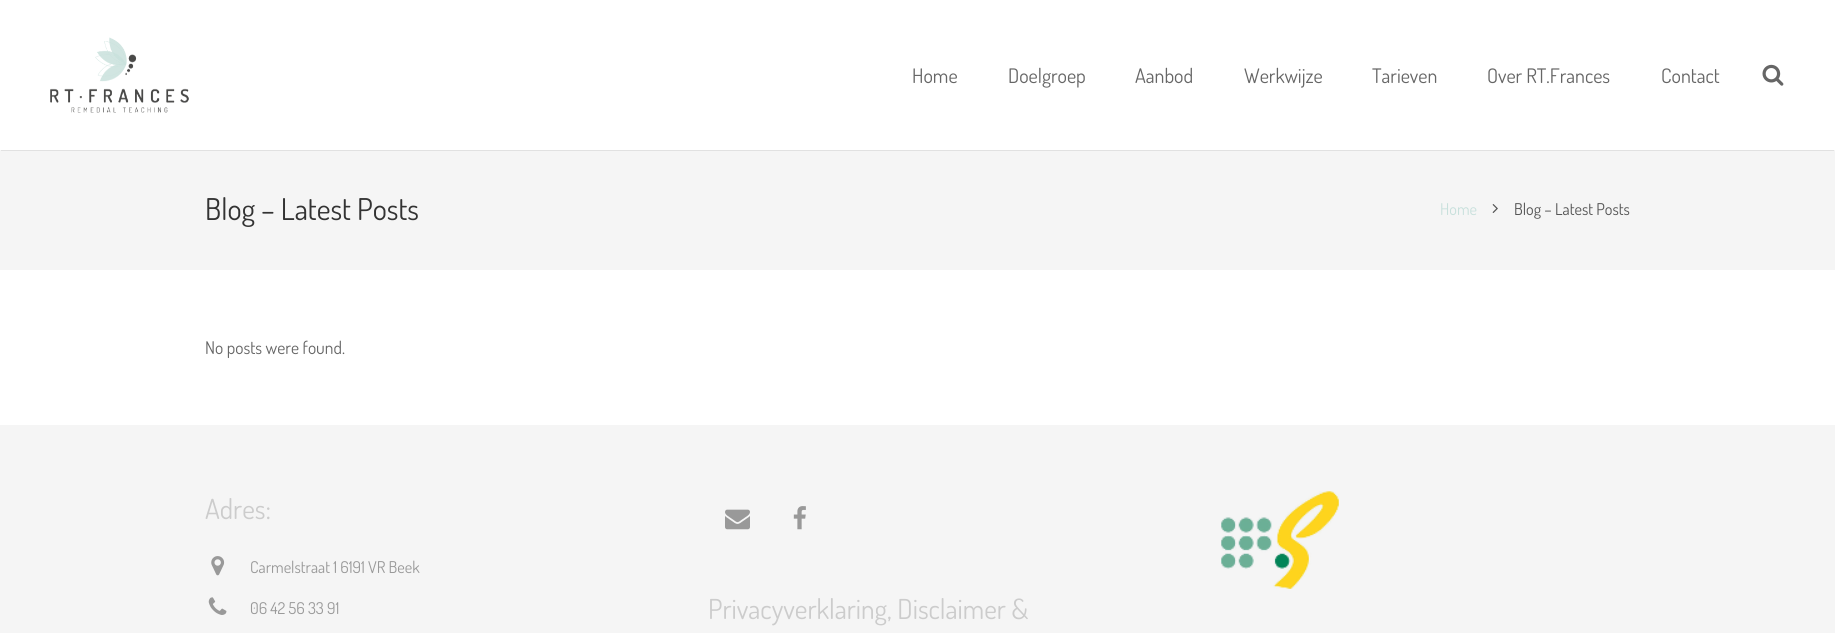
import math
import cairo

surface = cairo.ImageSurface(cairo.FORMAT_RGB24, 1835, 633)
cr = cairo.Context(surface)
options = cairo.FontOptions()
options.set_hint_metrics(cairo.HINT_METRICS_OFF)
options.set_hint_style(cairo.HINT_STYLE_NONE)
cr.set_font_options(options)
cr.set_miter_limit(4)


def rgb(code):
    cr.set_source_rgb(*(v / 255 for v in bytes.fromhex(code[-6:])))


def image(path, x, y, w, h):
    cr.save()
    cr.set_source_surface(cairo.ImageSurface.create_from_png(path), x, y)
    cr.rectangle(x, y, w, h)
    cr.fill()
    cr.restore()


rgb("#ffffff")
cr.paint()
rgb("#f5f5f5")
cr.rectangle(0, 150, 1835, 120)
cr.fill()
rgb("#e1e1e1")
cr.rectangle(1, 150, 1833, 1)
cr.fill()
image("img/1.png", 50, 37, 139, 76)
image("img/2.png", 1762, 64, 22, 22)
image("img/3.png", 1492, 204, 6, 9)
rgb("#f5f5f5")
cr.rectangle(0, 425, 1835, 208)
cr.fill()
image("img/4.png", 211, 556, 14, 20)
image("img/5.png", 208, 597, 19, 18)
image("img/6.png", 725, 509, 25, 21)
image("img/7.png", 793, 506, 13, 24)
image("img/8.png", 1221, 491, 118, 98)
cr.select_font_face("Dosis")
cr.set_font_size(20)
rgb("#666666")
for x, y, s in [
    (912, 83, "Home"),
    (1008, 83, "Doelgroep"),
    (1135, 83, "Aanbod"),
    (1244, 83, "Werkwijze"),
    (1372, 83, "Tarieven"),
    (1487, 83, "Over RT.Frances"),
    (1661, 83, "Contact"),
]:
    cr.move_to(x, y)
    cr.show_text(s)
cr.set_font_size(30)
rgb("#333333")
cr.move_to(205, 220)
cr.show_text("Blog – Latest Posts")
cr.set_font_size(16.25)
rgb("#c8e0dc")
cr.move_to(1440, 215)
cr.show_text("Home")
rgb("#555555")
cr.move_to(1514, 215)
cr.show_text("Blog – Latest Posts")
cr.set_font_size(17.5)
rgb("#666666")
cr.move_to(205, 354)
cr.show_text("No posts were found.")
cr.set_font_size(27.5)
rgb("#cccccc")
cr.move_to(205, 519)
cr.show_text("Adres:")
cr.set_font_size(16.25)
rgb("#999999")
cr.move_to(250, 573)
cr.show_text("Carmelstraat 1 6191 VR Beek")
cr.move_to(250, 614)
cr.show_text("06 42 56 33 91")
cr.set_font_size(27.5)
rgb("#cccccc")
cr.move_to(708, 619)
cr.show_text("Privacyverklaring, Disclaimer &")
surface.write_to_png("page.png")
